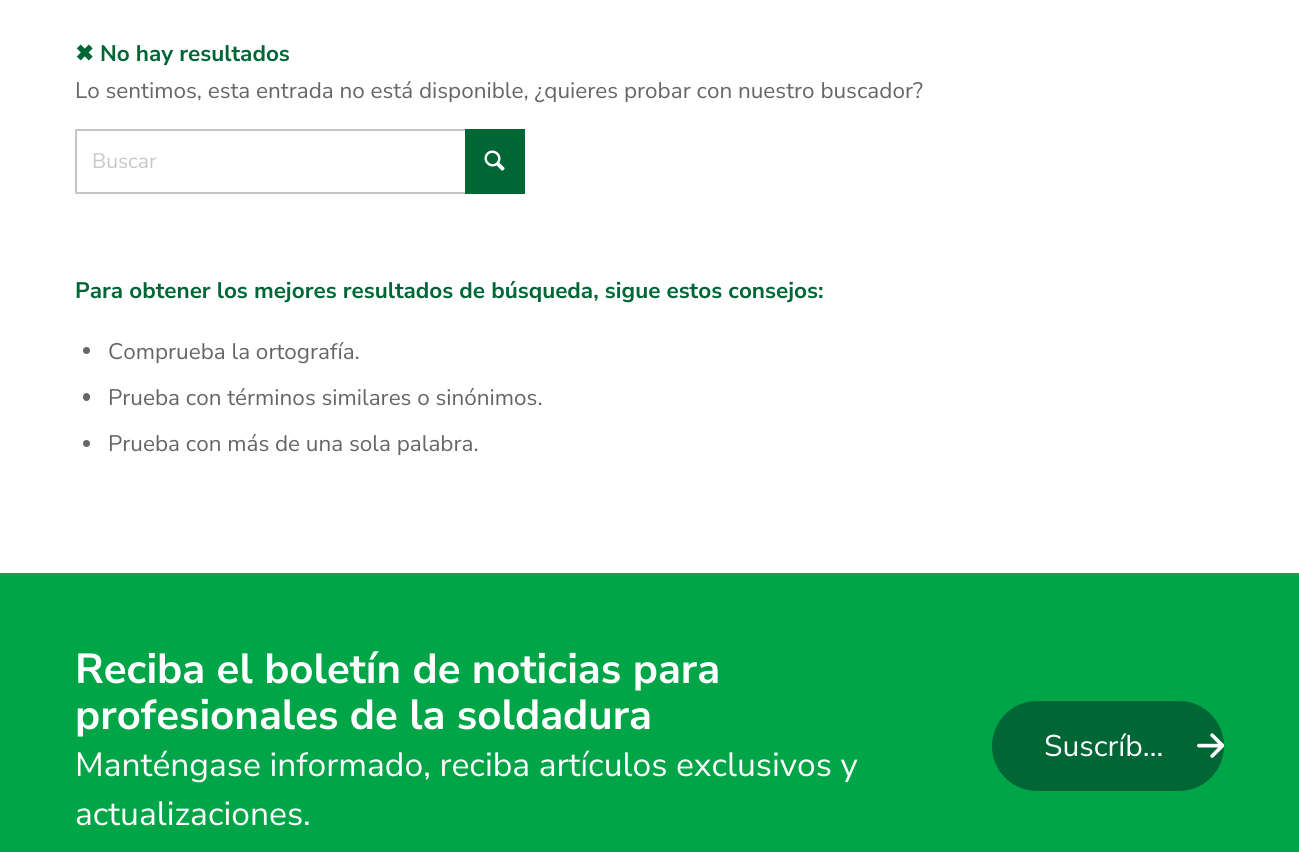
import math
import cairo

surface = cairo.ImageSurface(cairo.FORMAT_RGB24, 1299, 852)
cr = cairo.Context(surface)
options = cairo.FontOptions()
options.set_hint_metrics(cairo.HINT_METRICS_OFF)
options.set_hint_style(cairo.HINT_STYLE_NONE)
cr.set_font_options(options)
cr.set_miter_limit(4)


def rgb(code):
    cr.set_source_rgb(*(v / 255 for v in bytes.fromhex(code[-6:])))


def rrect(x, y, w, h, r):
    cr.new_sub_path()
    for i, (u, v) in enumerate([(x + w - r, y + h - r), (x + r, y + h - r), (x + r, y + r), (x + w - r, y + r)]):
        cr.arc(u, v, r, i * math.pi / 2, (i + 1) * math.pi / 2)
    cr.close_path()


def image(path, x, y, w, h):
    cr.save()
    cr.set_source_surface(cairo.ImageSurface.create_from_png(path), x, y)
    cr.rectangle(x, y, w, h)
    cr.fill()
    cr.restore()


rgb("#ffffff")
cr.paint()
cr.rectangle(76, 130, 448, 63)
rgb("#c5c5c5")
cr.stroke()
rgb("#006635")
cr.rectangle(465, 129, 60, 65)
cr.fill()
image("img/1.png", 484, 150, 21, 21)
rgb("#666666")
cr.arc(86.5, 350.5, 3.5, 0, 2 * math.pi)
cr.fill()
rrect(83, 393, 7, 8, 3.5)
cr.fill()
cr.arc(86.5, 443.5, 3.5, 0, 2 * math.pi)
cr.fill()
rgb("#00a547")
cr.rectangle(0, 573, 1299, 279)
cr.fill()
rgb("#006635")
rrect(992, 701, 232, 90, 45)
cr.fill()
image("img/2.png", 1197, 733, 27, 25)
cr.select_font_face("DejaVu Sans", cairo.FONT_SLANT_NORMAL, cairo.FONT_WEIGHT_BOLD)
cr.set_font_size(22.5)
cr.move_to(75, 61)
cr.show_text("✖")
cr.select_font_face("Nunito Sans", cairo.FONT_SLANT_NORMAL, cairo.FONT_WEIGHT_BOLD)
cr.move_to(100, 61)
cr.show_text("No hay resultados")
cr.select_font_face("Nunito Sans")
rgb("#666666")
cr.move_to(75, 98)
cr.show_text("Lo sentimos, esta entrada no está disponible, ¿quieres probar con nuestro buscador?")
cr.select_font_face("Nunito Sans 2")
cr.set_font_size(21)
rgb("#c8c8c8")
cr.move_to(92, 168)
cr.show_text("Buscar")
cr.select_font_face("Nunito Sans", cairo.FONT_SLANT_NORMAL, cairo.FONT_WEIGHT_BOLD)
cr.set_font_size(22.5)
rgb("#006635")
cr.move_to(75, 298)
cr.show_text("Para obtener los mejores resultados de búsqueda, sigue estos consejos:")
cr.select_font_face("Nunito Sans")
rgb("#666666")
for x, y, s in [
    (108, 359, "Comprueba la ortografía."),
    (108, 405, "Prueba con términos similares o sinónimos."),
    (108, 451, "Prueba con más de una sola palabra."),
]:
    cr.move_to(x, y)
    cr.show_text(s)
cr.select_font_face("Nunito Sans", cairo.FONT_SLANT_NORMAL, cairo.FONT_WEIGHT_BOLD)
cr.set_font_size(42)
rgb("#ffffff")
cr.move_to(75, 683)
cr.show_text("Reciba el boletín de noticias para")
cr.move_to(75, 729)
cr.show_text("profesionales de la soldadura")
cr.select_font_face("Nunito Sans")
cr.set_font_size(33.6)
cr.move_to(75, 776)
cr.show_text("Manténgase informado, reciba artículos exclusivos y")
cr.move_to(75, 825)
cr.show_text("actualizaciones.")
cr.set_font_size(30)
cr.move_to(1044, 756)
cr.show_text("Suscríb…")
surface.write_to_png("page.png")
